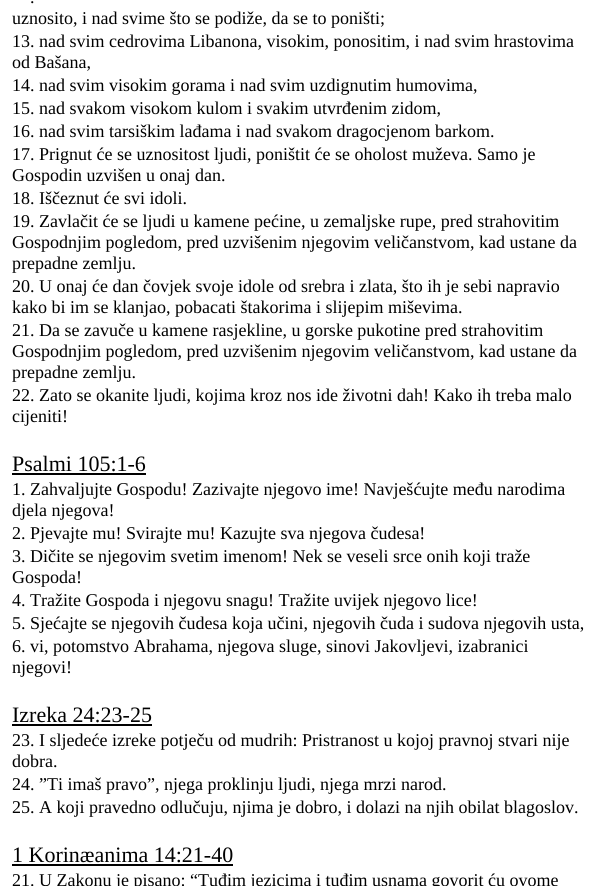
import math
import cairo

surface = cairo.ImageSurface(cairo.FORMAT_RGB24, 603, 886)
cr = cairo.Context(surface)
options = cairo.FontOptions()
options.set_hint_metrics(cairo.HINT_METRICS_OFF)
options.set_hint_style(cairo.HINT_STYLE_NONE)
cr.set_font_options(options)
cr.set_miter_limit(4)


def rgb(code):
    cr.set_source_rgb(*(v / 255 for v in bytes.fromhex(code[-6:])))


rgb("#ffffff")
cr.paint()
for x, y, w, h, color in [
    (12, 473, 134, 2, "#000000"),
    (12, 724, 140, 2, "#000000"),
    (12, 864, 221, 2, "#000000"),
]:
    rgb(color)
    cr.rectangle(x, y, w, h)
    cr.fill()
cr.select_font_face("Liberation Serif")
cr.set_font_size(18)
for x, y, s in [
    (30, 3, "."),
    (12, 24, "uznosito, i nad svime što se podiže, da se to poništi;"),
    (12, 47, "13. nad svim cedrovima Libanona, visokim, ponositim, i nad svim hrastovima"),
    (12, 68, "od Bašana,"),
    (12, 91, "14. nad svim visokim gorama i nad svim uzdignutim humovima,"),
    (12, 114, "15. nad svakom visokom kulom i svakim utvrđenim zidom,"),
    (12, 137, "16. nad svim tarsiškim lađama i nad svakom dragocjenom barkom."),
    (12, 160, "17. Prignut će se uznositost ljudi, poništit će se oholost muževa. Samo je"),
    (12, 181, "Gospodin uzvišen u onaj dan."),
    (12, 204, "18. Iščeznut će svi idoli."),
    (12, 227, "19. Zavlačit će se ljudi u kamene pećine, u zemaljske rupe, pred strahovitim"),
    (12, 248, "Gospodnjim pogledom, pred uzvišenim njegovim veličanstvom, kad ustane da"),
    (12, 269, "prepadne zemlju."),
    (12, 292, "20. U onaj će dan čovjek svoje idole od srebra i zlata, što ih je sebi napravio"),
    (12, 313, "kako bi im se klanjao, pobacati štakorima i slijepim miševima."),
    (12, 336, "21. Da se zavuče u kamene rasjekline, u gorske pukotine pred strahovitim"),
    (12, 357, "Gospodnjim pogledom, pred uzvišenim njegovim veličanstvom, kad ustane da"),
    (12, 378, "prepadne zemlju."),
    (12, 401, "22. Zato se okanite ljudi, kojima kroz nos ide životni dah! Kako ih treba malo"),
    (12, 422, "cijeniti!"),
]:
    cr.move_to(x, y)
    cr.show_text(s)
cr.set_font_size(22)
cr.move_to(12, 471)
cr.show_text("Psalmi 105:1-6")
cr.set_font_size(18)
for x, y, s in [
    (12, 495, "1. Zahvaljujte Gospodu! Zazivajte njegovo ime! Navješćujte među narodima"),
    (12, 516, "djela njegova!"),
    (12, 539, "2. Pjevajte mu! Svirajte mu! Kazujte sva njegova čudesa!"),
    (12, 562, "3. Dičite se njegovim svetim imenom! Nek se veseli srce onih koji traže"),
    (12, 583, "Gospoda!"),
    (12, 606, "4. Tražite Gospoda i njegovu snagu! Tražite uvijek njegovo lice!"),
    (12, 629, "5. Sjećajte se njegovih čudesa koja učini, njegovih čuda i sudova njegovih usta,"),
    (12, 652, "6. vi, potomstvo Abrahama, njegova sluge, sinovi Jakovljevi, izabranici"),
    (12, 673, "njegovi!"),
]:
    cr.move_to(x, y)
    cr.show_text(s)
cr.set_font_size(22)
cr.move_to(12, 722)
cr.show_text("Izreka 24:23-25")
cr.set_font_size(18)
for x, y, s in [
    (12, 746, "23. I sljedeće izreke potječu od mudrih: Pristranost u kojoj pravnoj stvari nije"),
    (12, 767, "dobra."),
    (12, 790, "24. ”Ti imaš pravo”, njega proklinju ljudi, njega mrzi narod."),
    (12, 813, "25. A koji pravedno odlučuju, njima je dobro, i dolazi na njih obilat blagoslov."),
]:
    cr.move_to(x, y)
    cr.show_text(s)
cr.set_font_size(22)
cr.move_to(12, 862)
cr.show_text("1 Korinæanima 14:21-40")
cr.set_font_size(18)
cr.move_to(12, 886)
cr.show_text("21. U Zakonu je pisano: “Tuđim jezicima i tuđim usnama govorit ću ovome")
surface.write_to_png("page.png")
